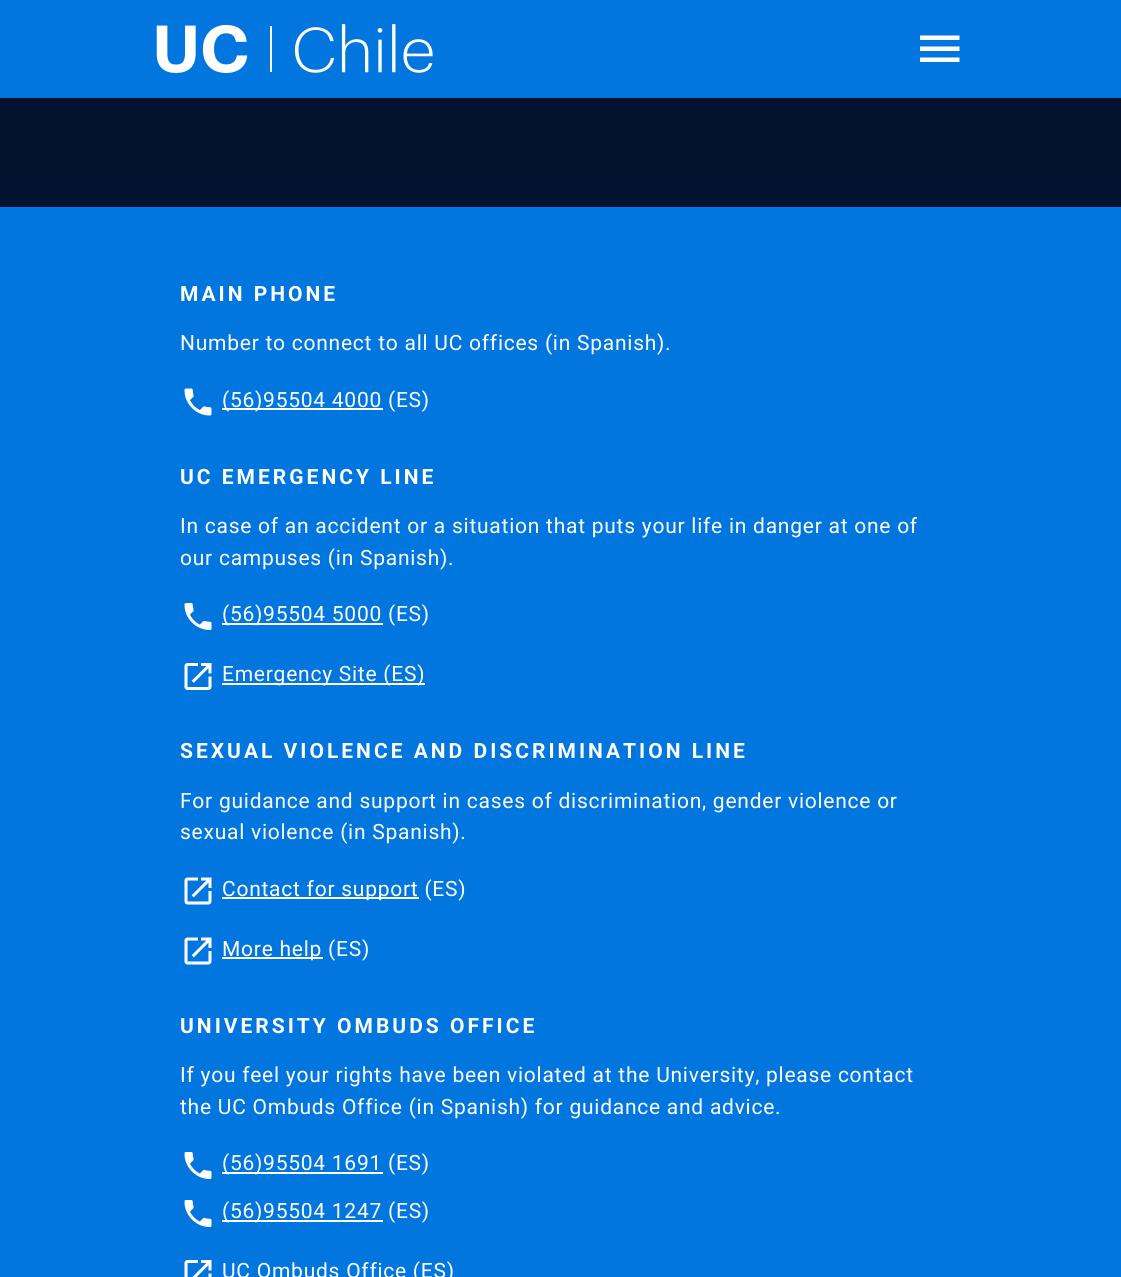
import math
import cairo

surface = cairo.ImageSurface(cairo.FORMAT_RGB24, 1121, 1277)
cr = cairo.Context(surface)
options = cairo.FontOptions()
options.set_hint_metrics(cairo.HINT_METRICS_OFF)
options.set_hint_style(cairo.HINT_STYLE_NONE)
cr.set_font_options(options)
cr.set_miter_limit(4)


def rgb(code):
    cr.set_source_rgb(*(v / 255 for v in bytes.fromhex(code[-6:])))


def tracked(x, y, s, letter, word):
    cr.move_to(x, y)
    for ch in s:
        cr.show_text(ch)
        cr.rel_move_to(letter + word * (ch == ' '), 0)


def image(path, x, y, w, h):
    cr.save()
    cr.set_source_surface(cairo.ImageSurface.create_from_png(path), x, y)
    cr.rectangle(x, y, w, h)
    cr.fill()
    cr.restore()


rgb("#03122e")
cr.paint()
rgb("#0176de")
cr.rectangle(0, 0, 1121, 98)
cr.fill()
image("img/1.png", 156, 24, 277, 49)
rgb("#ffffff")
cr.new_path()
cr.move_to(920, 35.5)
cr.line_to(959.5, 35.5)
cr.line_to(959.5, 40)
cr.line_to(920, 40)
cr.close_path()
cr.move_to(920, 51)
cr.line_to(920, 46.5)
cr.line_to(959.5, 46.5)
cr.line_to(959.5, 51)
cr.close_path()
cr.move_to(920, 62)
cr.line_to(920, 57.5)
cr.line_to(959.5, 57.5)
cr.line_to(959.5, 62)
cr.close_path()
cr.fill()
rgb("#0176de")
cr.rectangle(0, 207, 1121, 1070)
cr.fill()
image("img/2.png", 184, 388, 28, 28)
rgb("#ffffff")
cr.rectangle(222, 408, 161, 2)
cr.fill()
image("img/3.png", 184, 603, 28, 27)
cr.rectangle(222, 623, 161, 2)
cr.fill()
image("img/4.png", 184, 663, 28, 27)
cr.rectangle(222, 683, 203, 2)
cr.fill()
image("img/5.png", 184, 877, 28, 28)
cr.rectangle(222, 897, 197, 2)
cr.fill()
image("img/5.png", 184, 937, 28, 28)
cr.rectangle(222, 957, 101, 2)
cr.fill()
image("img/3.png", 184, 1152, 28, 27)
cr.rectangle(222, 1172, 161, 2)
cr.fill()
image("img/3.png", 184, 1200, 28, 27)
cr.rectangle(222, 1220, 161, 2)
cr.fill()
image("img/6.png", 184, 1260, 28, 17)
cr.select_font_face("Roboto", cairo.FONT_SLANT_NORMAL, cairo.FONT_WEIGHT_BOLD)
cr.set_font_size(21)
tracked(180, 301, "MAIN PHONE", 3, 0)
cr.select_font_face("Roboto")
tracked(180, 350, "Number to connect to all UC offices (in Spanish).", 0.75, 0)
tracked(222, 407, "(56)95504 4000 (ES)", 0.75, 0)
cr.select_font_face("Roboto", cairo.FONT_SLANT_NORMAL, cairo.FONT_WEIGHT_BOLD)
tracked(180, 484, "UC EMERGENCY LINE", 3, 0)
cr.select_font_face("Roboto")
for x, y, s in [
    (180, 533, "In case of an accident or a situation that puts your life in danger at one of"),
    (180, 565, "our campuses (in Spanish)."),
    (222, 621, "(56)95504 5000 (ES)"),
    (222, 681, "Emergency Site (ES)"),
]:
    tracked(x, y, s, 0.75, 0)
cr.select_font_face("Roboto", cairo.FONT_SLANT_NORMAL, cairo.FONT_WEIGHT_BOLD)
tracked(180, 758, "SEXUAL VIOLENCE AND DISCRIMINATION LINE", 3, 0)
cr.select_font_face("Roboto")
for x, y, s in [
    (180, 808, "For guidance and support in cases of discrimination, gender violence or"),
    (180, 839, "sexual violence (in Spanish)."),
    (222, 896, "Contact for support (ES)"),
    (222, 956, "More help (ES)"),
]:
    tracked(x, y, s, 0.75, 0)
cr.select_font_face("Roboto", cairo.FONT_SLANT_NORMAL, cairo.FONT_WEIGHT_BOLD)
tracked(180, 1033, "UNIVERSITY OMBUDS OFFICE", 3, 0)
cr.select_font_face("Roboto")
for x, y, s in [
    (180, 1082, "If you feel your rights have been violated at the University, please contact"),
    (180, 1114, "the UC Ombuds Office (in Spanish) for guidance and advice."),
    (222, 1170, "(56)95504 1691 (ES)"),
    (222, 1218, "(56)95504 1247"),
    (388, 1218, "(ES)"),
    (222, 1278, "UC Ombuds Office (ES)"),
]:
    tracked(x, y, s, 0.75, 0)
surface.write_to_png("page.png")
